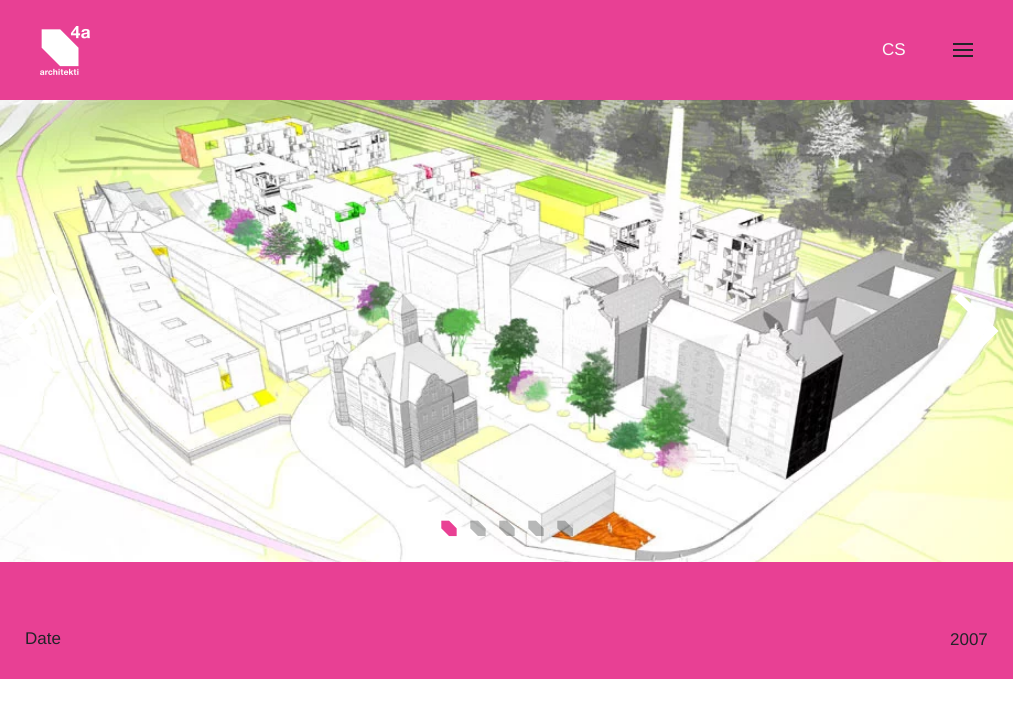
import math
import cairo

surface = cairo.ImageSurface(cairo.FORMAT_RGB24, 1013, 703)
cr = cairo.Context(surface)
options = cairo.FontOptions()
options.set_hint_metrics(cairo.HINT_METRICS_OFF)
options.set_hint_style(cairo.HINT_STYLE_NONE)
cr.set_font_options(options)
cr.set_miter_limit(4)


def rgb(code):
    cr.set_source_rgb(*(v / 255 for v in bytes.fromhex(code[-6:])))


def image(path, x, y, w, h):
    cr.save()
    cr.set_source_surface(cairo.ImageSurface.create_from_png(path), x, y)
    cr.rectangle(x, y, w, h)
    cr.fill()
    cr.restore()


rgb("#ffffff")
cr.paint()
rgb("#e84094")
cr.rectangle(0, 0, 1013, 100)
cr.fill()
image("img/1.png", 40, 26, 50, 49)
for x, y, w, h, color in [
    (953, 43, 20, 2, "#222328"),
    (953, 49, 20, 2, "#222328"),
    (953, 55, 20, 2, "#222328"),
]:
    rgb(color)
    cr.rectangle(x, y, w, h)
    cr.fill()
image("img/2.png", 0, 100, 1013, 462)
cr.new_path()
cr.move_to(56, 295.5)
cr.line_to(20, 331)
cr.line_to(56, 366.5)
rgb("#ffffff")
cr.set_line_width(7.9)
cr.stroke()
cr.new_path()
cr.move_to(957, 366.5)
cr.line_to(993, 331)
cr.line_to(957, 295.5)
cr.stroke()
image("img/3.png", 441, 520, 16, 17)
image("img/4.png", 470, 520, 16, 16)
image("img/5.png", 499, 520, 16, 16)
image("img/6.png", 528, 520, 16, 16)
image("img/7.png", 557, 520, 16, 16)
rgb("#e84094")
cr.rectangle(0, 562, 1013, 117)
cr.fill()
cr.select_font_face("Liberation Sans")
cr.set_font_size(17)
rgb("#fafafa")
cr.move_to(882, 55)
cr.show_text("CS")
rgb("#222328")
cr.move_to(25, 644)
cr.show_text("Date")
cr.move_to(950, 645)
cr.show_text("2007")
surface.write_to_png("page.png")
